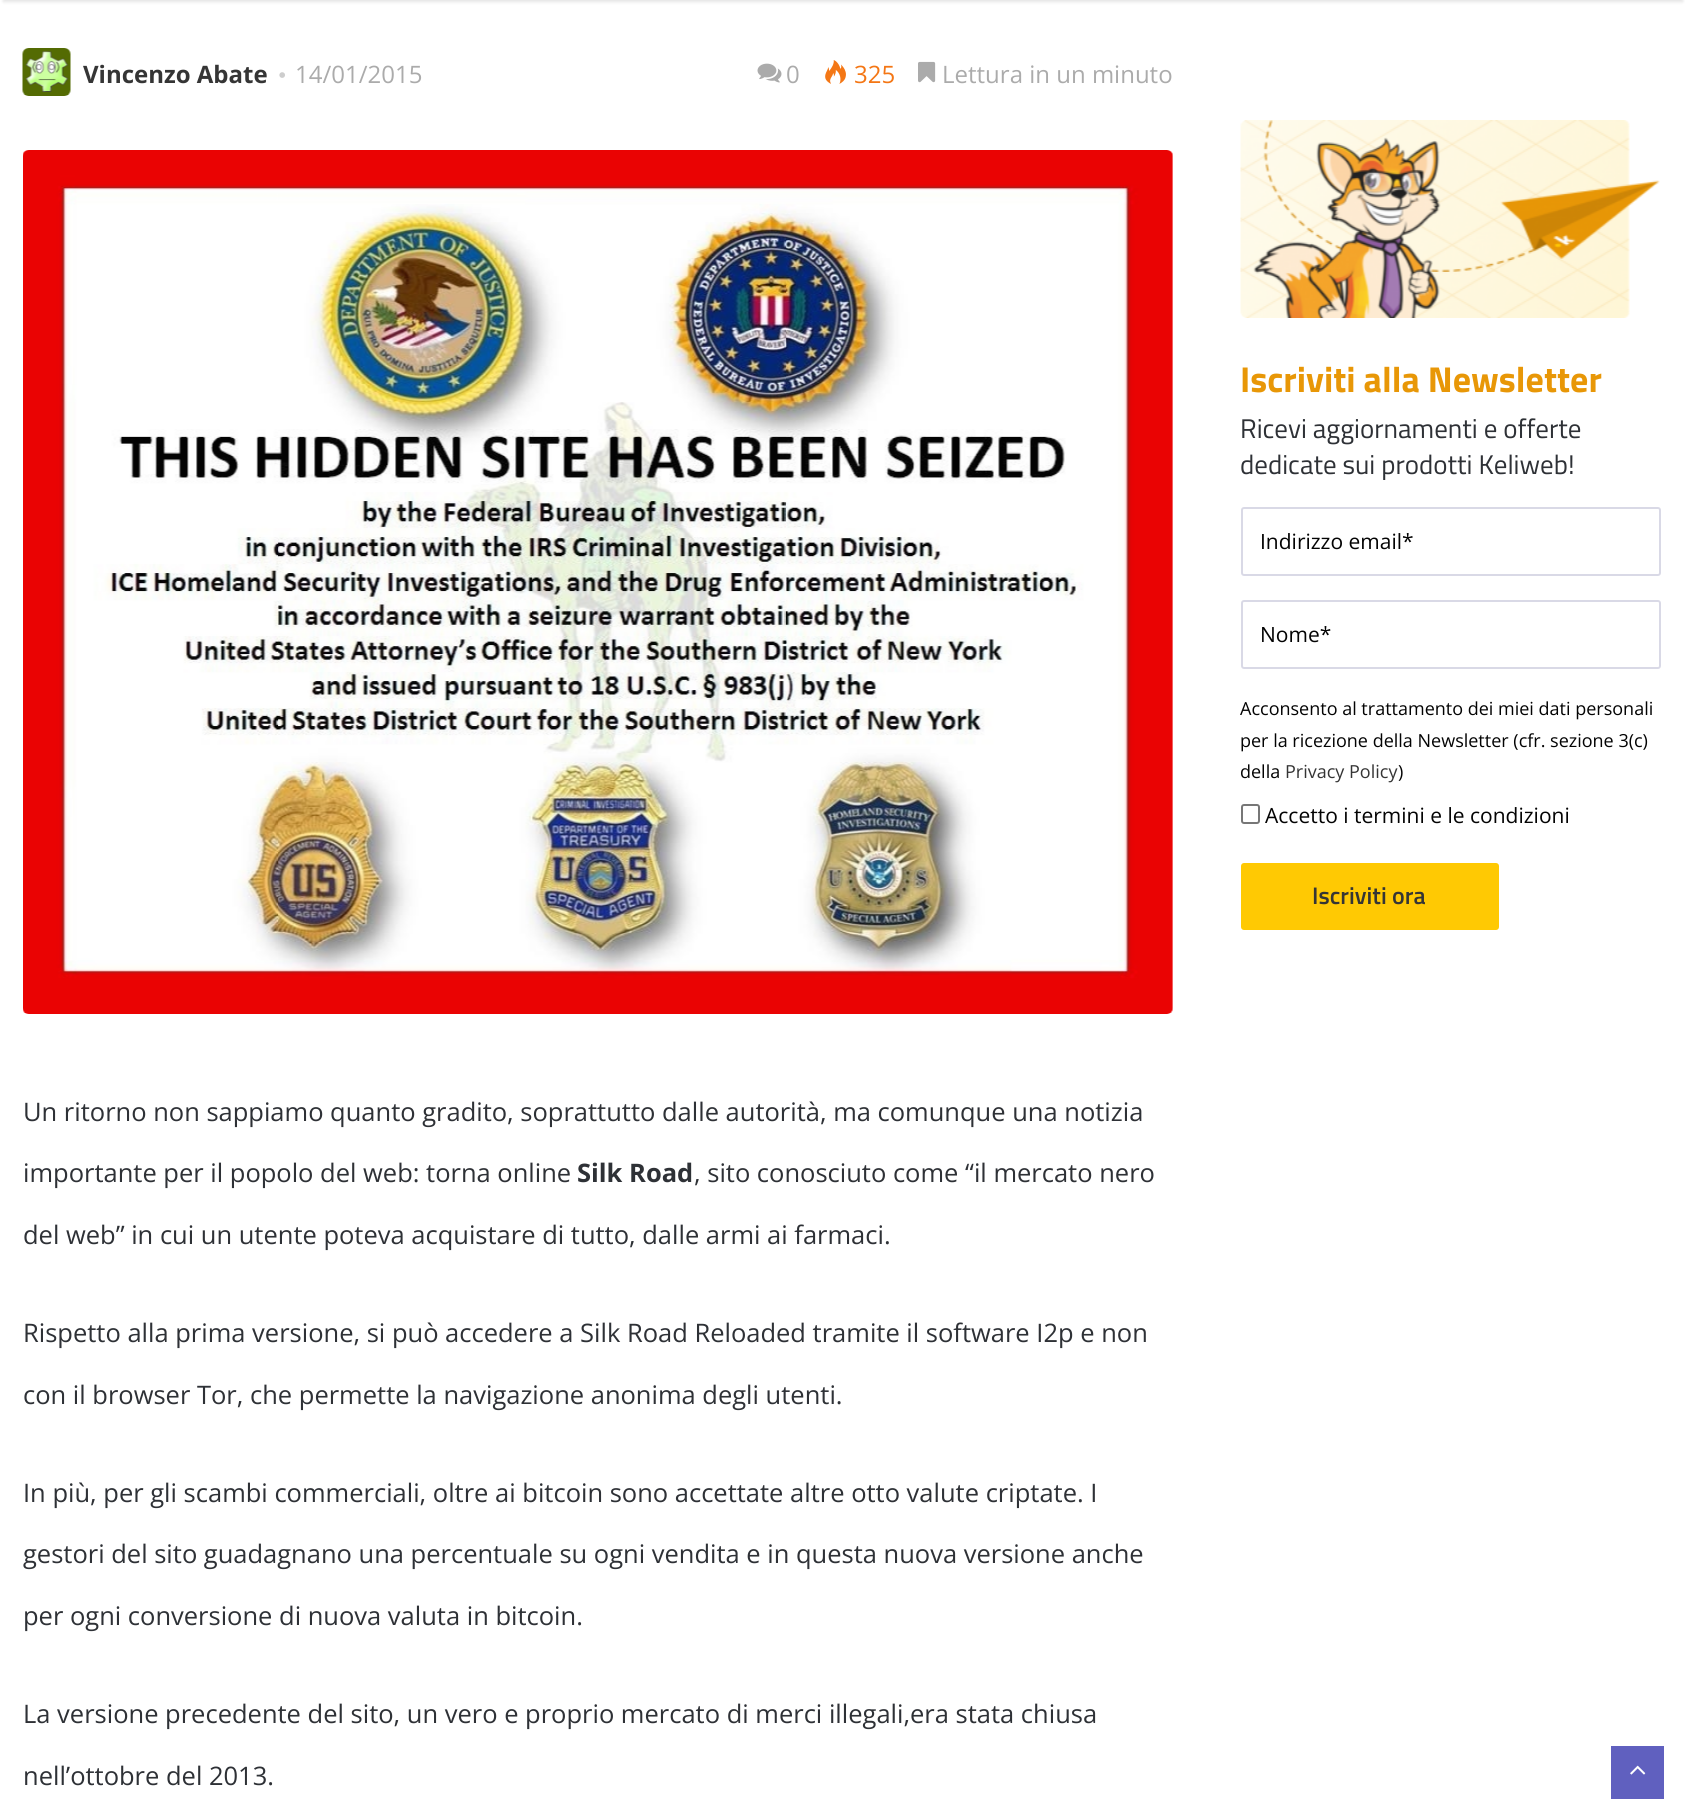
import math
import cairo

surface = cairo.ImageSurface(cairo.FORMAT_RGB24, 1685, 1820)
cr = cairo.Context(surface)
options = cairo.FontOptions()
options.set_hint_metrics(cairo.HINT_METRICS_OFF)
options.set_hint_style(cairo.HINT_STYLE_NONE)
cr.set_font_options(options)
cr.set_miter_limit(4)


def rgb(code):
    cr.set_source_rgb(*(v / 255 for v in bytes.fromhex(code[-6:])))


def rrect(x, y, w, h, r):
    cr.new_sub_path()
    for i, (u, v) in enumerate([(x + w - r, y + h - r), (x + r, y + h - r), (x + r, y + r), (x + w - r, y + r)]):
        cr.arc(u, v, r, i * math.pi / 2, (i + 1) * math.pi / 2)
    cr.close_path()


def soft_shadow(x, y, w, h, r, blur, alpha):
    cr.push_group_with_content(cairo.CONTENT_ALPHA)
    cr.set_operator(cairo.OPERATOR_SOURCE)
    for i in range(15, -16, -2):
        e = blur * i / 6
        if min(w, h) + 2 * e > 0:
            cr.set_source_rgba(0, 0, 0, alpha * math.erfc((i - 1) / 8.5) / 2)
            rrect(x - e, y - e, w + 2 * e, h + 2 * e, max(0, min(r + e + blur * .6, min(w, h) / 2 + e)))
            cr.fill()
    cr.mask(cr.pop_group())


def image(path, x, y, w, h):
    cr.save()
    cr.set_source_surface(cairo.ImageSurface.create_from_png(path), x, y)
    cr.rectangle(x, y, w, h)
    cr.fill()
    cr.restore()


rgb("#ffffff")
cr.paint()
rgb("#000000")
soft_shadow(3, -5, 1680, 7, 0, 1.5, 0.1)
image("img/1.png", 22, 48, 49, 48)
image("img/2.png", 757, 63, 25, 20)
image("img/3.png", 825, 60, 21, 24)
image("img/4.png", 918, 61, 18, 22)
image("img/5.png", 23, 150, 1150, 864)
image("img/6.png", 1240, 120, 420, 198)
rrect(1242, 508, 418, 67, 2)
rgb("#d9d9e6")
cr.stroke()
rrect(1242, 601, 418, 67, 2)
cr.stroke()
rrect(1242, 805, 17, 18, 2)
rgb("#777777")
cr.stroke()
rgb("#ffc903")
rrect(1241, 863, 258, 67, 3)
cr.fill()
rgb("#6060bf")
cr.rectangle(1611, 1746, 53, 53)
cr.fill()
image("img/7.png", 1630, 1765, 16, 10)
cr.select_font_face("Open Sans", cairo.FONT_SLANT_NORMAL, cairo.FONT_WEIGHT_BOLD)
cr.set_font_size(24)
rgb("#353535")
cr.move_to(83, 83)
cr.show_text("Vincenzo Abate")
cr.select_font_face("Liberation Serif")
rgb("#cdcdcd")
cr.move_to(278, 83)
cr.show_text("•")
cr.select_font_face("Open Sans")
rgb("#ababab")
cr.move_to(295, 83)
cr.show_text("14/01/2015")
cr.move_to(786, 83)
cr.show_text("0")
rgb("#f47614")
cr.move_to(854, 83)
cr.show_text("325")
rgb("#ababab")
cr.move_to(942, 83)
cr.show_text("Lettura in un minuto")
cr.set_font_size(25.5)
rgb("#2e3136")
cr.move_to(23, 1121)
cr.show_text("Un ritorno non sappiamo quanto gradito, soprattutto dalle autorità, ma comunque una notizia")
cr.move_to(23, 1182)
cr.show_text("importante per il popolo del web: torna online")
cr.select_font_face("Open Sans", cairo.FONT_SLANT_NORMAL, cairo.FONT_WEIGHT_BOLD)
cr.move_to(577, 1182)
cr.show_text("Silk Road")
cr.select_font_face("Open Sans")
for x, y, s in [
    (694, 1182, ", sito conosciuto come “il mercato nero"),
    (23, 1244, "del web” in cui un utente poteva acquistare di tutto, dalle armi ai farmaci."),
    (23, 1342, "Rispetto alla prima versione, si può accedere a Silk Road Reloaded tramite il software I2p e non"),
    (23, 1404, "con il browser Tor, che permette la navigazione anonima degli utenti."),
    (23, 1502, "In più, per gli scambi commerciali, oltre ai bitcoin sono accettate altre otto valute criptate. I"),
    (23, 1563, "gestori del sito guadagnano una percentuale su ogni vendita e in questa nuova versione anche"),
    (23, 1625, "per ogni conversione di nuova valuta in bitcoin."),
    (23, 1723, "La versione precedente del sito, un vero e proprio mercato di merci illegali,era stata chiusa"),
    (23, 1785, "nell’ottobre del 2013."),
]:
    cr.move_to(x, y)
    cr.show_text(s)
cr.select_font_face("Titillium Web", cairo.FONT_SLANT_NORMAL, cairo.FONT_WEIGHT_BOLD)
cr.set_font_size(36)
rgb("#e89707")
cr.move_to(1240, 392)
cr.show_text("Iscriviti alla Newsletter")
cr.select_font_face("Titillium Web")
cr.set_font_size(27)
rgb("#2e3136")
cr.move_to(1240, 438)
cr.show_text("Ricevi aggiornamenti e offerte")
cr.move_to(1240, 474)
cr.show_text("dedicate sui prodotti Keliweb!")
cr.select_font_face("Open Sans")
cr.set_font_size(21)
rgb("#030303")
cr.move_to(1260, 549)
cr.show_text("Indirizzo email*")
cr.move_to(1260, 642)
cr.show_text("Nome*")
cr.set_font_size(18)
for x, y, s in [
    (1240, 715, "Acconsento al trattamento dei miei dati personali"),
    (1240, 747, "per la ricezione della Newsletter (cfr. sezione 3(c)"),
    (1240, 778, "della"),
]:
    cr.move_to(x, y)
    cr.show_text(s)
rgb("#353535")
cr.move_to(1285, 778)
cr.show_text("Privacy Policy")
rgb("#030303")
cr.move_to(1398, 778)
cr.show_text(")")
cr.set_font_size(21)
cr.move_to(1265, 823)
cr.show_text("Accetto i termini e le condizioni")
cr.select_font_face("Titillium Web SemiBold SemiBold")
cr.set_font_size(24)
rgb("#353535")
cr.move_to(1312, 904)
cr.show_text("Iscriviti ora")
surface.write_to_png("page.png")
